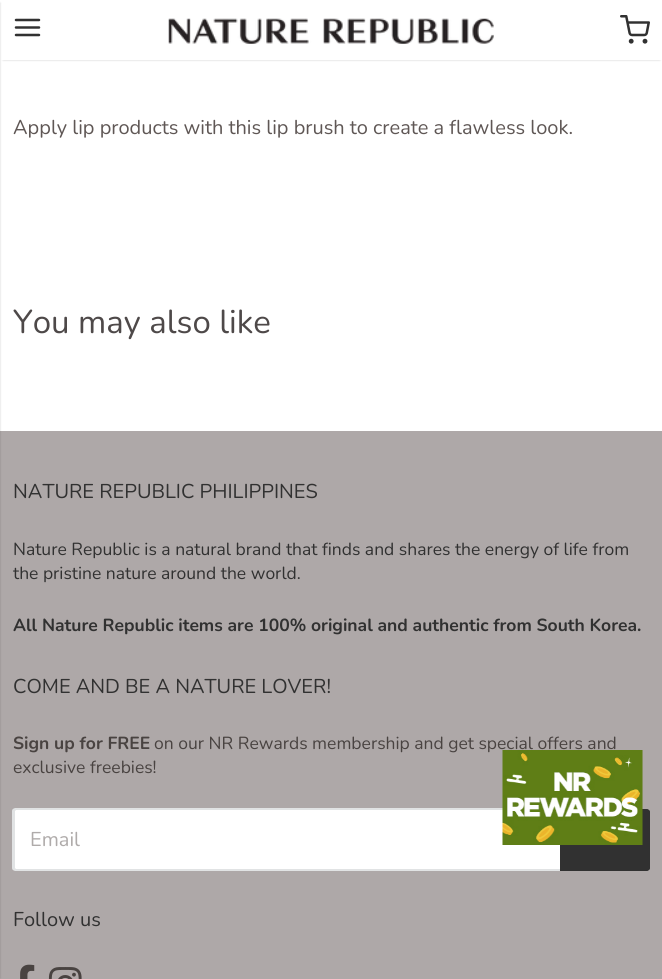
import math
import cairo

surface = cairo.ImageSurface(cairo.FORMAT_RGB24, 662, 979)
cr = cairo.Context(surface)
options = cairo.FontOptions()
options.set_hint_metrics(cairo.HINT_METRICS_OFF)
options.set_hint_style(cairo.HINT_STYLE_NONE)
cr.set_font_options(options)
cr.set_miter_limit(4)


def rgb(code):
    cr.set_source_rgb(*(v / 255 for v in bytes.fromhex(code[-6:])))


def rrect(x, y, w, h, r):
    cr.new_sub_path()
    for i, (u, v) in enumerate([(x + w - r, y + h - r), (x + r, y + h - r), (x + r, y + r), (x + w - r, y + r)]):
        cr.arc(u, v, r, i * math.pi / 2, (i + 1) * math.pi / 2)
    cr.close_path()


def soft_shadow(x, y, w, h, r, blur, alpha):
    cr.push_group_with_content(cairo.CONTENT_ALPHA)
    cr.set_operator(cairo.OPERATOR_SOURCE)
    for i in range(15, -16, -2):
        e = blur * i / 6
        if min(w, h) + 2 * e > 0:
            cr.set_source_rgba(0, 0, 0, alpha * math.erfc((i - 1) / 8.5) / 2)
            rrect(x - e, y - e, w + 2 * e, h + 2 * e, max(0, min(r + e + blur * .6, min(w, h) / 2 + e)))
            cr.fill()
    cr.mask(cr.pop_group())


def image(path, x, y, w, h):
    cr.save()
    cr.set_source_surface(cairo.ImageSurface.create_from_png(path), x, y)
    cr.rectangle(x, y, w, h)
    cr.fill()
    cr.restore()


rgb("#ffffff")
cr.paint()
rgb("#000000")
soft_shadow(3, 5, 657, 55, 0, 1, 0.2)
rgb("#ffffff")
cr.rectangle(1, 3, 661, 57)
cr.fill()
rgb("#aea8a8")
cr.rectangle(0, 431, 662, 548)
cr.fill()
rgb("#000000")
soft_shadow(-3, 3, 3, 975, 0, 1, 0.2)
cr.new_path()
cr.move_to(16, 27.5)
cr.line_to(39, 27.5)
cr.move_to(16, 20)
cr.line_to(39, 20)
cr.move_to(16, 35)
cr.line_to(39, 35)
rgb("#313131")
cr.set_line_width(2.5)
cr.set_line_cap(cairo.LINE_CAP_ROUND)
cr.set_line_join(cairo.LINE_JOIN_ROUND)
cr.stroke()
image("img/1.png", 168, 18, 326, 26)
image("img/2.png", 620, 15, 30, 29)
rgb("#ffffff")
cr.new_path()
cr.move_to(17, 808)
cr.line_to(560, 808)
cr.line_to(560, 871)
cr.line_to(17, 871)
cr.curve_to(15, 871, 13, 869, 13, 867)
cr.line_to(13, 812)
cr.curve_to(13, 810, 15, 808, 17, 808)
cr.close_path()
cr.fill()
rgb("#e1e3e4")
cr.set_fill_rule(cairo.FILL_RULE_EVEN_ODD)
cr.new_path()
cr.move_to(16, 808)
cr.line_to(560, 808)
cr.line_to(560, 871)
cr.line_to(16, 871)
cr.curve_to(14, 871, 12, 870, 12, 868)
cr.line_to(12, 811)
cr.curve_to(12, 809, 14, 808, 16, 808)
cr.close_path()
cr.move_to(16, 810)
cr.line_to(560, 810)
cr.line_to(560, 869)
cr.line_to(16, 869)
cr.curve_to(16, 869, 15, 868, 15, 868)
cr.line_to(15, 811)
cr.curve_to(15, 811, 16, 810, 16, 810)
cr.close_path()
cr.fill()
rgb("#313131")
cr.new_path()
cr.move_to(560, 809)
cr.line_to(646, 809)
cr.curve_to(648, 809, 650, 811, 650, 813)
cr.line_to(650, 867)
cr.curve_to(650, 869, 648, 871, 646, 871)
cr.line_to(560, 871)
cr.close_path()
cr.fill()
cr.new_path()
cr.move_to(560, 809)
cr.line_to(646, 809)
cr.curve_to(648, 809, 650, 810, 650, 812)
cr.line_to(650, 868)
cr.curve_to(650, 870, 648, 871, 646, 871)
cr.line_to(560, 871)
cr.close_path()
cr.move_to(560, 811)
cr.line_to(646, 811)
cr.curve_to(647, 811, 648, 812, 648, 812)
cr.line_to(648, 868)
cr.curve_to(648, 868, 647, 869, 646, 869)
cr.line_to(560, 869)
cr.close_path()
cr.fill()
image("img/3.png", 20, 964, 15, 15)
image("img/4.png", 48, 967, 34, 12)
cr.select_font_face("Nunito")
cr.set_font_size(20)
rgb("#5f5755")
cr.move_to(13, 134)
cr.show_text("Apply lip products with this lip brush to create a flawless look.")
cr.set_font_size(33)
rgb("#4e4949")
cr.move_to(13, 333)
cr.show_text("You may also like")
cr.set_font_size(20)
rgb("#313131")
cr.move_to(13, 498)
cr.show_text("NATURE REPUBLIC PHILIPPINES")
cr.set_font_size(17.5)
cr.move_to(13, 555)
cr.show_text("Nature Republic is a natural brand that finds and shares the energy of life from")
cr.move_to(13, 579)
cr.show_text("the pristine nature around the world.")
cr.select_font_face("Nunito", cairo.FONT_SLANT_NORMAL, cairo.FONT_WEIGHT_BOLD)
cr.move_to(13, 631)
cr.show_text("All Nature Republic items are 100% original and authentic from South Korea.")
cr.select_font_face("Nunito")
cr.set_font_size(20)
cr.move_to(13, 693)
cr.show_text("COME AND BE A NATURE LOVER!")
cr.select_font_face("Nunito", cairo.FONT_SLANT_NORMAL, cairo.FONT_WEIGHT_BOLD)
cr.set_font_size(17.5)
rgb("#494341")
cr.move_to(13, 749)
cr.show_text("Sign up for FREE")
cr.select_font_face("Nunito")
cr.move_to(154, 749)
cr.show_text("on our NR Rewards membership and get special offers and")
cr.move_to(13, 773)
cr.show_text("exclusive freebies!")
cr.set_font_size(20)
rgb("#afabaa")
cr.move_to(30, 846)
cr.show_text("Email")
rgb("#313131")
cr.move_to(13, 926)
cr.show_text("Follow us")
image("img/5.png", 502, 750, 141, 95)
surface.write_to_png("page.png")
